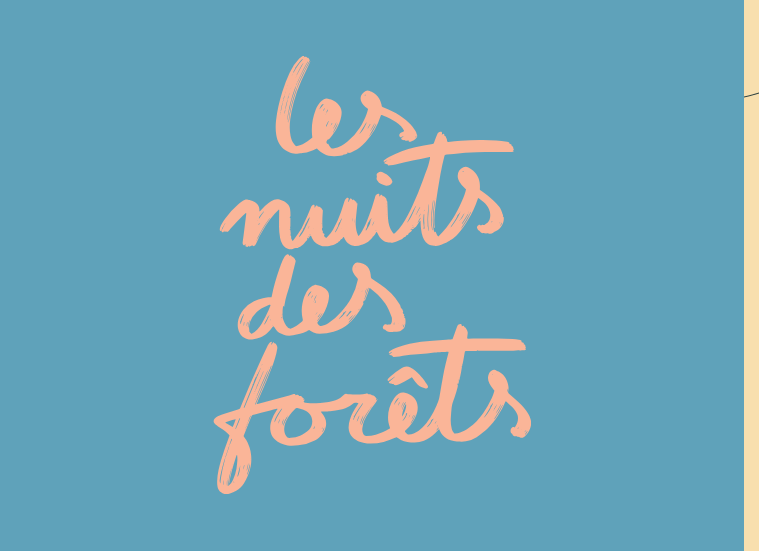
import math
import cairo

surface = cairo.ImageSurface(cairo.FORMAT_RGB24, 759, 551)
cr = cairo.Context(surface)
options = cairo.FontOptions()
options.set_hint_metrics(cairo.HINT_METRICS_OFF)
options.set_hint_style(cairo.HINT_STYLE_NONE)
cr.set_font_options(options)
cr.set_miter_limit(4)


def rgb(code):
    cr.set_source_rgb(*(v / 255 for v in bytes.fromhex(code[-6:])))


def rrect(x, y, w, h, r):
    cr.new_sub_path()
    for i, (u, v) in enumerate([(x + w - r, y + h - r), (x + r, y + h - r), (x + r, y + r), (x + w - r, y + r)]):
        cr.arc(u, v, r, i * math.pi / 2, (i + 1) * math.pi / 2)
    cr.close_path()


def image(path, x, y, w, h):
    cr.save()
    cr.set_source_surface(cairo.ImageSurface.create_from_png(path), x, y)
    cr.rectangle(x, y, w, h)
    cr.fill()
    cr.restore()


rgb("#f8dfae")
cr.paint()
rrect(522.5, -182.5, 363, 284, 181.5)
rgb("#2c403f")
cr.set_line_width(1)
cr.stroke()
rgb("#5fa2ba")
cr.rectangle(0, 0, 744, 551)
cr.fill()
image("img/1.png", 213, 56, 318, 438)
surface.write_to_png("page.png")
